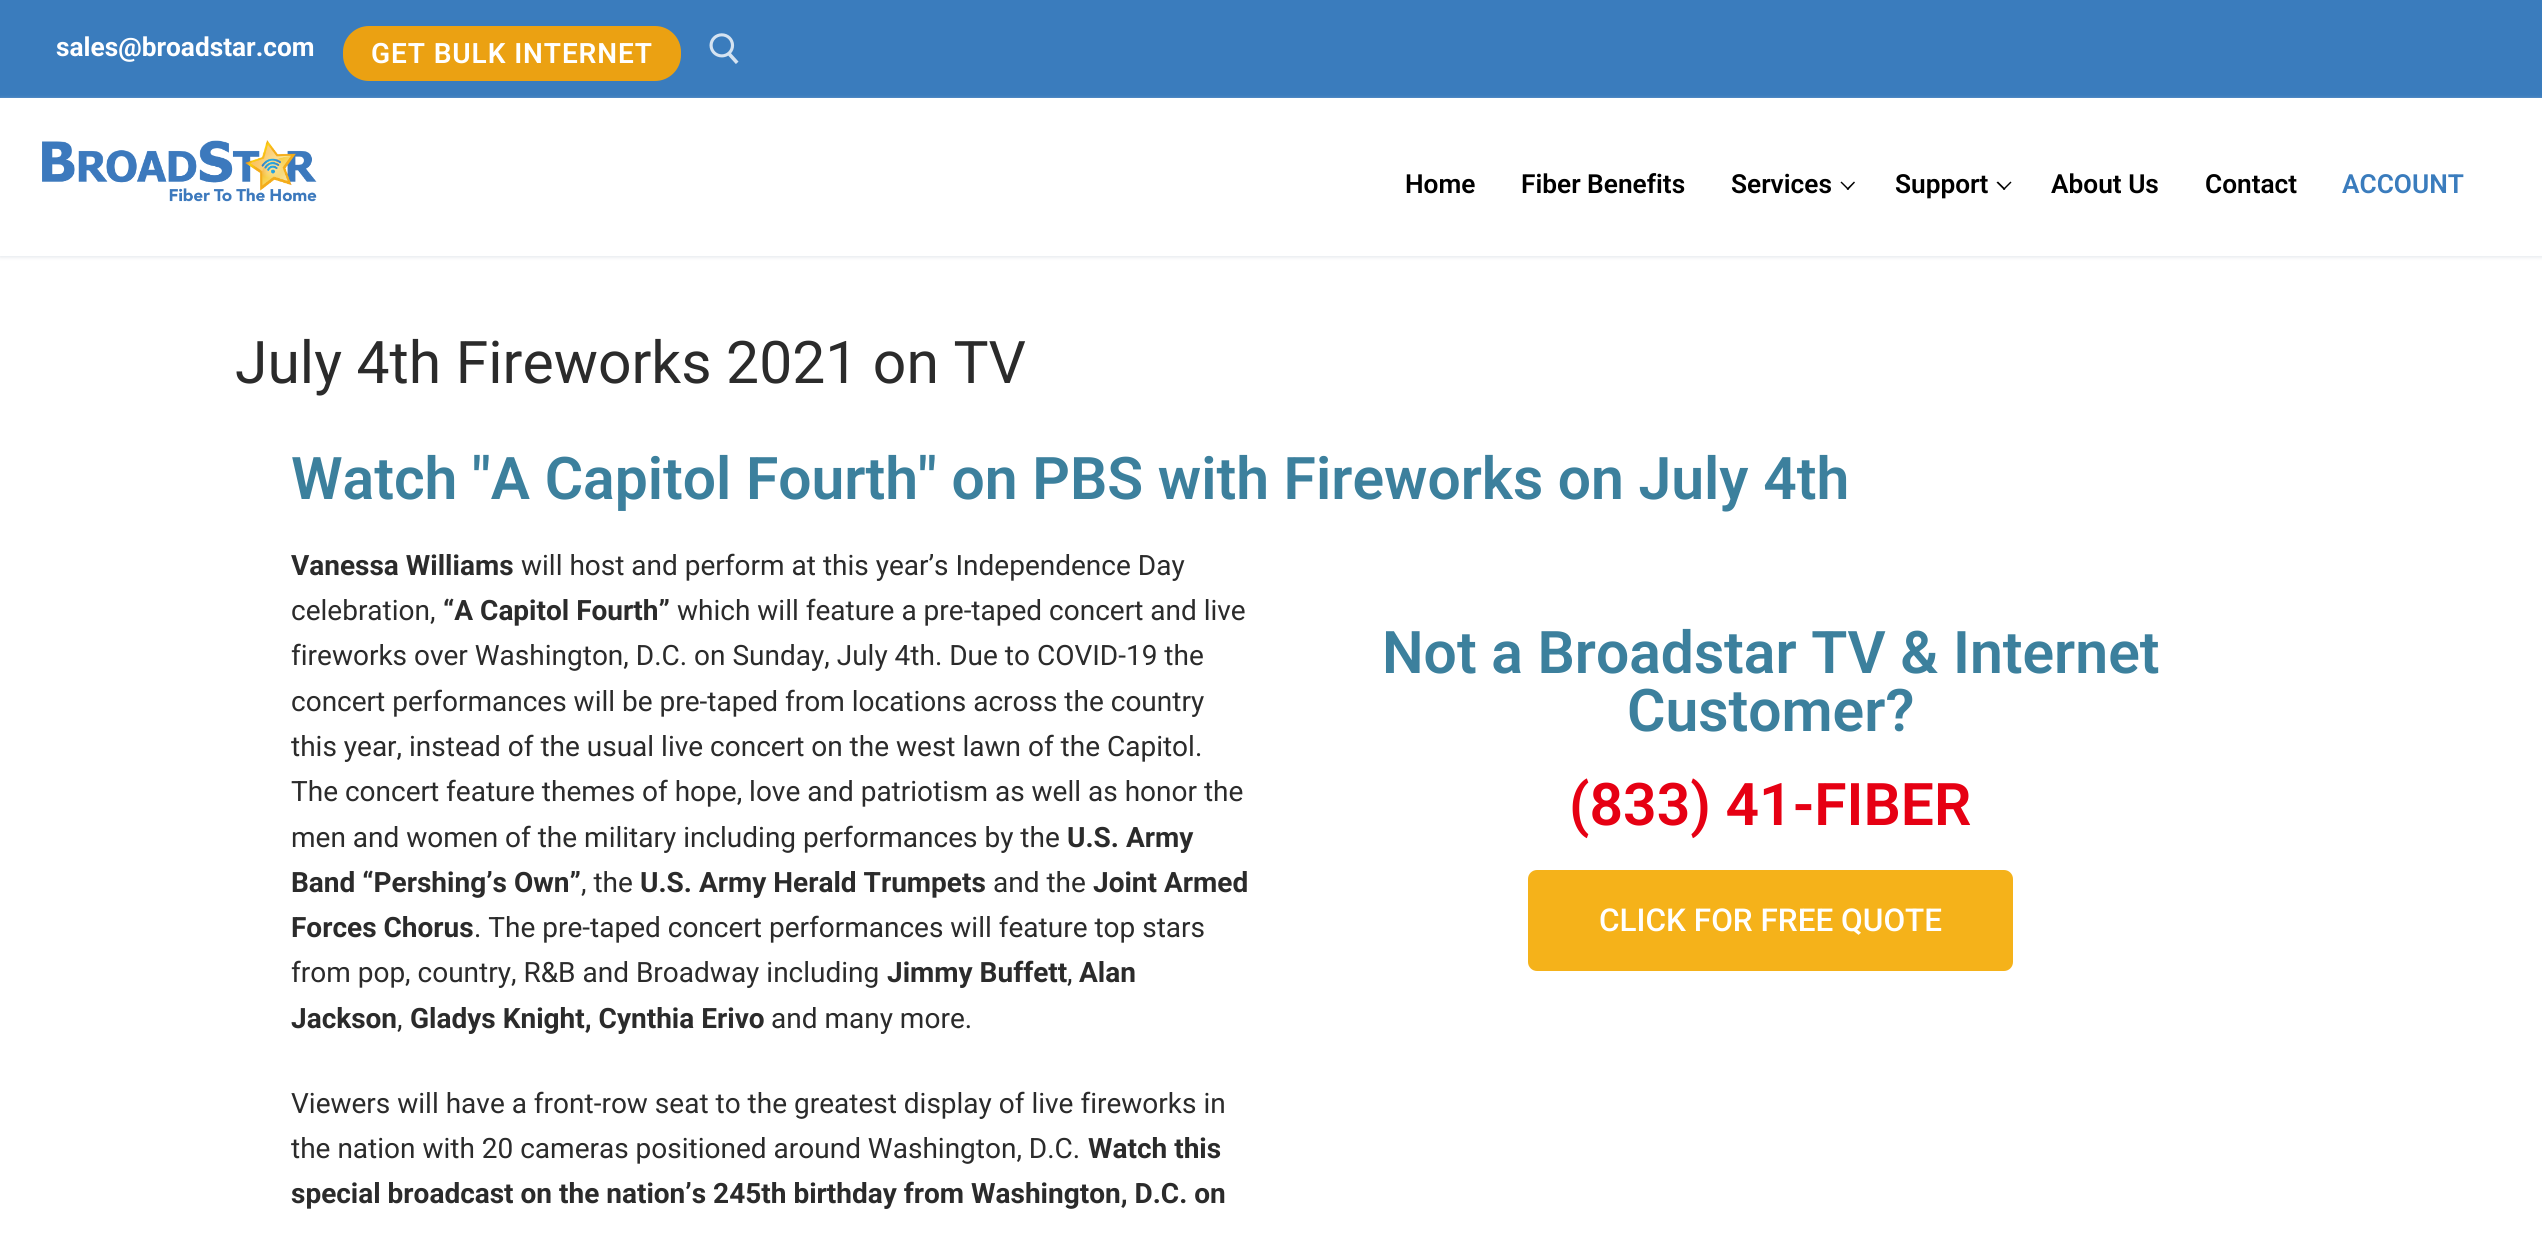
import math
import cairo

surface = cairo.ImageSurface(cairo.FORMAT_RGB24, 2542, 1235)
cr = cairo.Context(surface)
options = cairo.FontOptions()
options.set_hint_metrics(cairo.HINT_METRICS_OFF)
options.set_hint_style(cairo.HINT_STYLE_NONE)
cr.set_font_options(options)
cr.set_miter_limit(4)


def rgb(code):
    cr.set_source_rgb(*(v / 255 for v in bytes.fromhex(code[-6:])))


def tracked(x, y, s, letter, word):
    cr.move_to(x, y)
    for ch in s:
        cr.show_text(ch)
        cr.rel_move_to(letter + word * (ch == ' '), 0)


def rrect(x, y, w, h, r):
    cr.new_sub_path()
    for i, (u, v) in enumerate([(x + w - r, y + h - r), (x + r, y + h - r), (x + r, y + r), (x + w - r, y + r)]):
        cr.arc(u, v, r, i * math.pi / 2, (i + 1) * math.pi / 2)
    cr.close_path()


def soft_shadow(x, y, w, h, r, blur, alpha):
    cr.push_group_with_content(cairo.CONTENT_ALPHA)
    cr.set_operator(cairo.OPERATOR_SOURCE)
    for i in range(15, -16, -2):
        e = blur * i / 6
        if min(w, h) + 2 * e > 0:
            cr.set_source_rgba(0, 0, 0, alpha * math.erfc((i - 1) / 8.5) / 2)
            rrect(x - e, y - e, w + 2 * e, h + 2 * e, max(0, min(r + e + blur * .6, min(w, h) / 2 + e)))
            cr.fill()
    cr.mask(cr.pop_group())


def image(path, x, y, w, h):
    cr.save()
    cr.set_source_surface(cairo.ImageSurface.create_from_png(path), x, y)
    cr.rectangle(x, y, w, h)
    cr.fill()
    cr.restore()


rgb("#ffffff")
cr.paint()
rgb("#3a7cbd")
cr.rectangle(0, 0, 2542, 98)
cr.fill()
rgb("#eba112")
rrect(343, 26, 338, 55, 26)
cr.fill()
image("img/1.png", 709, 33, 30, 31)
rgb("#e1e5ea")
soft_shadow(0, 100, 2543, 157, 0, 2, 1)
rgb("#ffffff")
cr.rectangle(0, 98, 2542, 158)
cr.fill()
image("img/2.png", 42, 140, 275, 62)
rgb("#000000")
cr.new_path()
cr.move_to(1848, 190)
cr.line_to(1840.5, 182.5)
cr.line_to(1841.5, 181.5)
cr.line_to(1849, 189)
cr.close_path()
cr.fill()
cr.new_path()
cr.move_to(1848, 190)
cr.line_to(1846.5, 189)
cr.line_to(1854, 181.5)
cr.line_to(1855, 182.5)
cr.close_path()
cr.fill()
cr.new_path()
cr.move_to(2004, 190)
cr.line_to(1996.5, 182.5)
cr.line_to(1998, 181.5)
cr.line_to(2005.5, 189)
cr.close_path()
cr.fill()
cr.new_path()
cr.move_to(2004, 190)
cr.line_to(2003, 189)
cr.line_to(2010.5, 181.5)
cr.line_to(2011.5, 182.5)
cr.close_path()
cr.fill()
rgb("#f5b21a")
rrect(1528, 870, 485, 101, 9)
cr.fill()
cr.select_font_face("Roboto", cairo.FONT_SLANT_NORMAL, cairo.FONT_WEIGHT_BOLD)
cr.set_font_size(26.25)
rgb("#ffffff")
cr.move_to(56, 56)
cr.show_text("sales@broadstar.com")
cr.select_font_face("Roboto SemiBold")
cr.set_font_size(28)
tracked(371, 63, "GET BULK INTERNET", 0.9, 0)
cr.set_font_size(26.25)
rgb("#000000")
for x, y, s in [
    (1405, 193, "Home"),
    (1521, 193, "Fiber Benefits"),
    (1731, 193, "Services"),
    (1895, 193, "Support"),
    (2051, 193, "About Us"),
    (2205, 193, "Contact"),
]:
    cr.move_to(x, y)
    cr.show_text(s)
rgb("#3a7cbd")
cr.move_to(2342, 193)
cr.show_text("ACCOUNT")
cr.select_font_face("Roboto")
cr.set_font_size(58.8)
rgb("#2b2b2b")
cr.move_to(235, 383)
cr.show_text("July 4th Fireworks 2021 on TV")
cr.select_font_face("Roboto SemiBold")
rgb("#3c809d")
cr.move_to(291, 499)
cr.show_text("Watch \"A Capitol Fourth\" on PBS with Fireworks on July 4th")
cr.select_font_face("Roboto", cairo.FONT_SLANT_NORMAL, cairo.FONT_WEIGHT_BOLD)
cr.set_font_size(28)
rgb("#2b2b2b")
cr.move_to(291, 575)
cr.show_text("Vanessa Williams")
cr.select_font_face("Roboto")
cr.move_to(521, 575)
cr.show_text("will host and perform at this year’s Independence Day")
cr.move_to(291, 620)
cr.show_text("celebration,")
cr.select_font_face("Roboto", cairo.FONT_SLANT_NORMAL, cairo.FONT_WEIGHT_BOLD)
cr.move_to(443, 620)
cr.show_text("“A Capitol Fourth”")
cr.select_font_face("Roboto")
for x, y, s in [
    (677, 620, "which will feature a pre-taped concert and live"),
    (291, 665, "fireworks over Washington, D.C. on Sunday, July 4th. Due to COVID-19 the"),
    (291, 711, "concert performances will be pre-taped from locations across the country"),
    (291, 756, "this year, instead of the usual live concert on the west lawn of the Capitol."),
    (291, 801, "The concert feature themes of hope, love and patriotism as well as honor the"),
    (291, 847, "men and women of the military including performances by the"),
]:
    cr.move_to(x, y)
    cr.show_text(s)
cr.select_font_face("Roboto", cairo.FONT_SLANT_NORMAL, cairo.FONT_WEIGHT_BOLD)
cr.move_to(1067, 847)
cr.show_text("U.S. Army")
cr.move_to(291, 892)
cr.show_text("Band “Pershing’s Own”")
cr.select_font_face("Roboto")
cr.move_to(581, 892)
cr.show_text(", the")
cr.select_font_face("Roboto", cairo.FONT_SLANT_NORMAL, cairo.FONT_WEIGHT_BOLD)
cr.move_to(640, 892)
cr.show_text("U.S. Army Herald Trumpets")
cr.select_font_face("Roboto")
cr.move_to(993, 892)
cr.show_text("and the")
cr.select_font_face("Roboto", cairo.FONT_SLANT_NORMAL, cairo.FONT_WEIGHT_BOLD)
cr.move_to(1093, 892)
cr.show_text("Joint Armed")
cr.move_to(291, 937)
cr.show_text("Forces Chorus")
cr.select_font_face("Roboto")
cr.move_to(474, 937)
cr.show_text(". The pre-taped concert performances will feature top stars")
cr.move_to(291, 982)
cr.show_text("from pop, country, R&B and Broadway including")
cr.select_font_face("Roboto", cairo.FONT_SLANT_NORMAL, cairo.FONT_WEIGHT_BOLD)
cr.move_to(887, 982)
cr.show_text("Jimmy Buffett")
cr.select_font_face("Roboto")
cr.move_to(1067, 982)
cr.show_text(",")
cr.select_font_face("Roboto", cairo.FONT_SLANT_NORMAL, cairo.FONT_WEIGHT_BOLD)
cr.move_to(1079, 982)
cr.show_text("Alan")
cr.move_to(291, 1028)
cr.show_text("Jackson")
cr.select_font_face("Roboto")
cr.move_to(397, 1028)
cr.show_text(",")
cr.select_font_face("Roboto", cairo.FONT_SLANT_NORMAL, cairo.FONT_WEIGHT_BOLD)
cr.move_to(410, 1028)
cr.show_text("Gladys Knight, Cynthia Erivo")
cr.select_font_face("Roboto")
for x, y, s in [
    (771, 1028, "and many more."),
    (291, 1113, "Viewers will have a front-row seat to the greatest display of live fireworks in"),
    (291, 1158, "the nation with 20 cameras positioned around Washington, D.C."),
]:
    cr.move_to(x, y)
    cr.show_text(s)
cr.select_font_face("Roboto", cairo.FONT_SLANT_NORMAL, cairo.FONT_WEIGHT_BOLD)
cr.move_to(1088, 1158)
cr.show_text("Watch this")
cr.move_to(291, 1203)
cr.show_text("special broadcast on the nation’s 245th birthday from Washington, D.C. on")
cr.select_font_face("Roboto SemiBold")
cr.set_font_size(58.8)
rgb("#3c809d")
cr.move_to(1382, 673)
cr.show_text("Not a Broadstar TV & Internet")
cr.move_to(1627, 731)
cr.show_text("Customer?")
rgb("#e60013")
cr.move_to(1569, 825)
cr.show_text("(833) 41-FIBER")
cr.select_font_face("Roboto Medium")
cr.set_font_size(31.5)
rgb("#ffffff")
cr.move_to(1599, 931)
cr.show_text("CLICK FOR FREE QUOTE")
surface.write_to_png("page.png")
